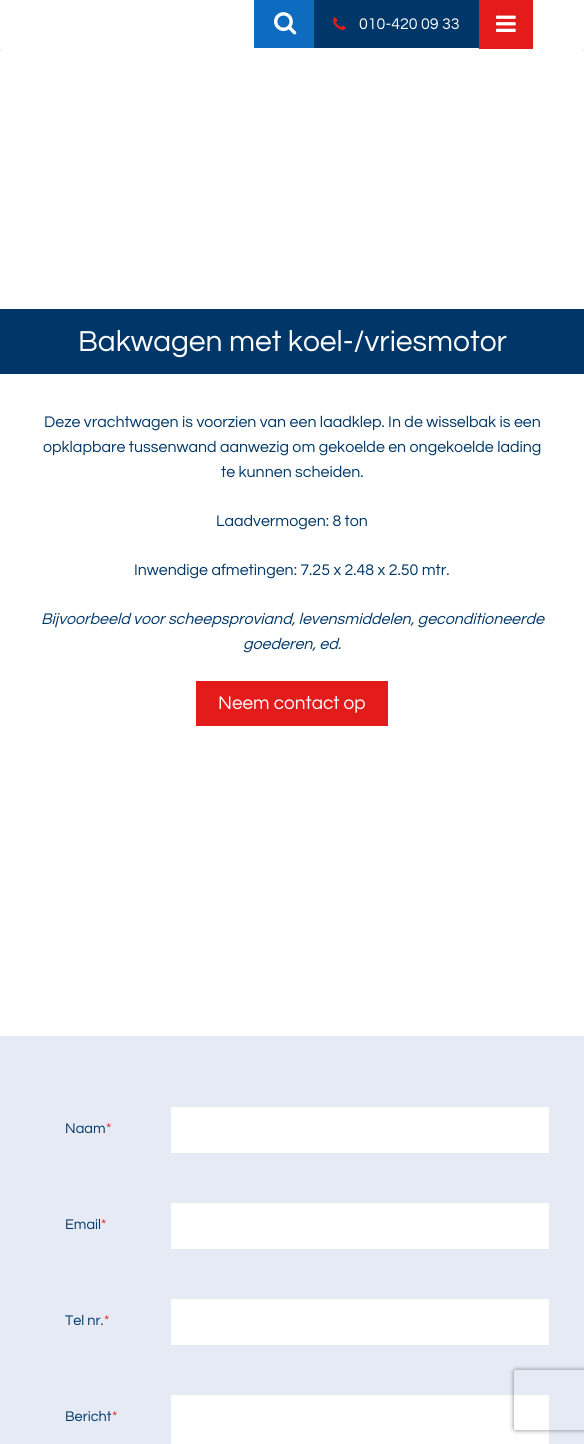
import math
import cairo

surface = cairo.ImageSurface(cairo.FORMAT_RGB24, 584, 1444)
cr = cairo.Context(surface)
options = cairo.FontOptions()
options.set_hint_metrics(cairo.HINT_METRICS_OFF)
options.set_hint_style(cairo.HINT_STYLE_NONE)
cr.set_font_options(options)
cr.set_miter_limit(4)


def rgb(code):
    cr.set_source_rgb(*(v / 255 for v in bytes.fromhex(code[-6:])))


def rrect(x, y, w, h, r):
    cr.new_sub_path()
    for i, (u, v) in enumerate([(x + w - r, y + h - r), (x + r, y + h - r), (x + r, y + r), (x + w - r, y + r)]):
        cr.arc(u, v, r, i * math.pi / 2, (i + 1) * math.pi / 2)
    cr.close_path()


def soft_shadow(x, y, w, h, r, blur, alpha):
    cr.push_group_with_content(cairo.CONTENT_ALPHA)
    cr.set_operator(cairo.OPERATOR_SOURCE)
    for i in range(15, -16, -2):
        e = blur * i / 6
        if min(w, h) + 2 * e > 0:
            cr.set_source_rgba(0, 0, 0, alpha * math.erfc((i - 1) / 8.5) / 2)
            rrect(x - e, y - e, w + 2 * e, h + 2 * e, max(0, min(r + e + blur * .6, min(w, h) / 2 + e)))
            cr.fill()
    cr.mask(cr.pop_group())


def image(path, x, y, w, h):
    cr.save()
    cr.set_source_surface(cairo.ImageSurface.create_from_png(path), x, y)
    cr.rectangle(x, y, w, h)
    cr.fill()
    cr.restore()


rgb("#ffffff")
cr.paint()
cr.save()
cr.rectangle(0, 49, 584, 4)
cr.clip()
rgb("#000000")
soft_shadow(7, 9, 570, 35, 0, 11.5, 0.53)
cr.restore()
rgb("#0e6cc0")
cr.rectangle(254, 0, 60, 48)
cr.fill()
image("img/1.png", 274, 12, 23, 23)
rgb("#003768")
cr.rectangle(314, 0, 165, 48)
cr.fill()
image("img/2.png", 333, 17, 13, 13)
rgb("#e41b1b")
cr.rectangle(479, 0, 54, 49)
cr.fill()
image("img/3.png", 496, 15, 20, 17)
rgb("#ffffff")
rrect(2, 51, 580, 256, 2)
cr.fill_preserve()
cr.set_line_width(4)
cr.stroke()
for x, y, w, h, color in [
    (0, 309, 584, 65, "#003768"),
    (196, 681, 192, 45, "#e41b1b"),
    (0, 1036, 584, 408, "#e5eaf5"),
    (171, 1107, 378, 46, "#ffffff"),
    (171, 1203, 378, 46, "#ffffff"),
    (171, 1299, 378, 46, "#ffffff"),
    (171, 1395, 378, 49, "#ffffff"),
]:
    rgb(color)
    cr.rectangle(x, y, w, h)
    cr.fill()
cr.save()
cr.set_fill_rule(cairo.FILL_RULE_EVEN_ODD)
cr.new_path()
cr.move_to(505, 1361)
cr.line_to(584, 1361)
cr.line_to(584, 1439)
cr.line_to(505, 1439)
cr.close_path()
cr.move_to(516, 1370)
cr.line_to(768, 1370)
cr.curve_to(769, 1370, 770, 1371, 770, 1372)
cr.line_to(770, 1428)
cr.curve_to(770, 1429, 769, 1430, 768, 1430)
cr.line_to(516, 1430)
cr.curve_to(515, 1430, 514, 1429, 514, 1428)
cr.line_to(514, 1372)
cr.curve_to(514, 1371, 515, 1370, 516, 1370)
cr.close_path()
cr.clip()
rgb("#808080")
soft_shadow(514, 1370, 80, 60, 2, 2.5, 1)
cr.restore()
cr.select_font_face("Questrial")
cr.set_font_size(16)
cr.move_to(359, 29)
cr.show_text("010-420 09 33")
cr.set_font_size(30)
cr.move_to(78, 351)
cr.show_text("Bakwagen met koel-/vriesmotor")
cr.set_font_size(16)
rgb("#003768")
for x, y, s in [
    (44, 427, "Deze vrachtwagen is voorzien van een laadklep. In de wisselbak is een"),
    (43, 452, "opklapbare tussenwand aanwezig om gekoelde en ongekoelde lading"),
    (221, 477, "te kunnen scheiden."),
    (216, 526, "Laadvermogen: 8 ton"),
    (134, 575, "Inwendige afmetingen: 7.25 x 2.48 x 2.50 mtr."),
]:
    cr.move_to(x, y)
    cr.show_text(s)
cr.select_font_face("Questrial", cairo.FONT_SLANT_ITALIC)
cr.move_to(41, 624)
cr.show_text("Bijvoorbeeld voor scheepsproviand, levensmiddelen, geconditioneerde")
cr.move_to(243, 649)
cr.show_text("goederen, ed.")
cr.select_font_face("Questrial")
cr.set_font_size(19)
rgb("#ffffff")
cr.move_to(218, 709)
cr.show_text("Neem contact op")
cr.set_font_size(14.5)
rgb("#003768")
cr.move_to(65, 1133)
cr.show_text("Naam")
rgb("#e41b1b")
cr.move_to(106, 1133)
cr.show_text("*")
rgb("#003768")
cr.move_to(65, 1229)
cr.show_text("Email")
rgb("#e41b1b")
cr.move_to(101, 1229)
cr.show_text("*")
rgb("#003768")
cr.move_to(65, 1325)
cr.show_text("Tel nr.")
rgb("#e41b1b")
cr.move_to(104, 1325)
cr.show_text("*")
rgb("#003768")
cr.move_to(65, 1421)
cr.show_text("Bericht")
rgb("#e41b1b")
cr.move_to(112, 1421)
cr.show_text("*")
surface.write_to_png("page.png")
